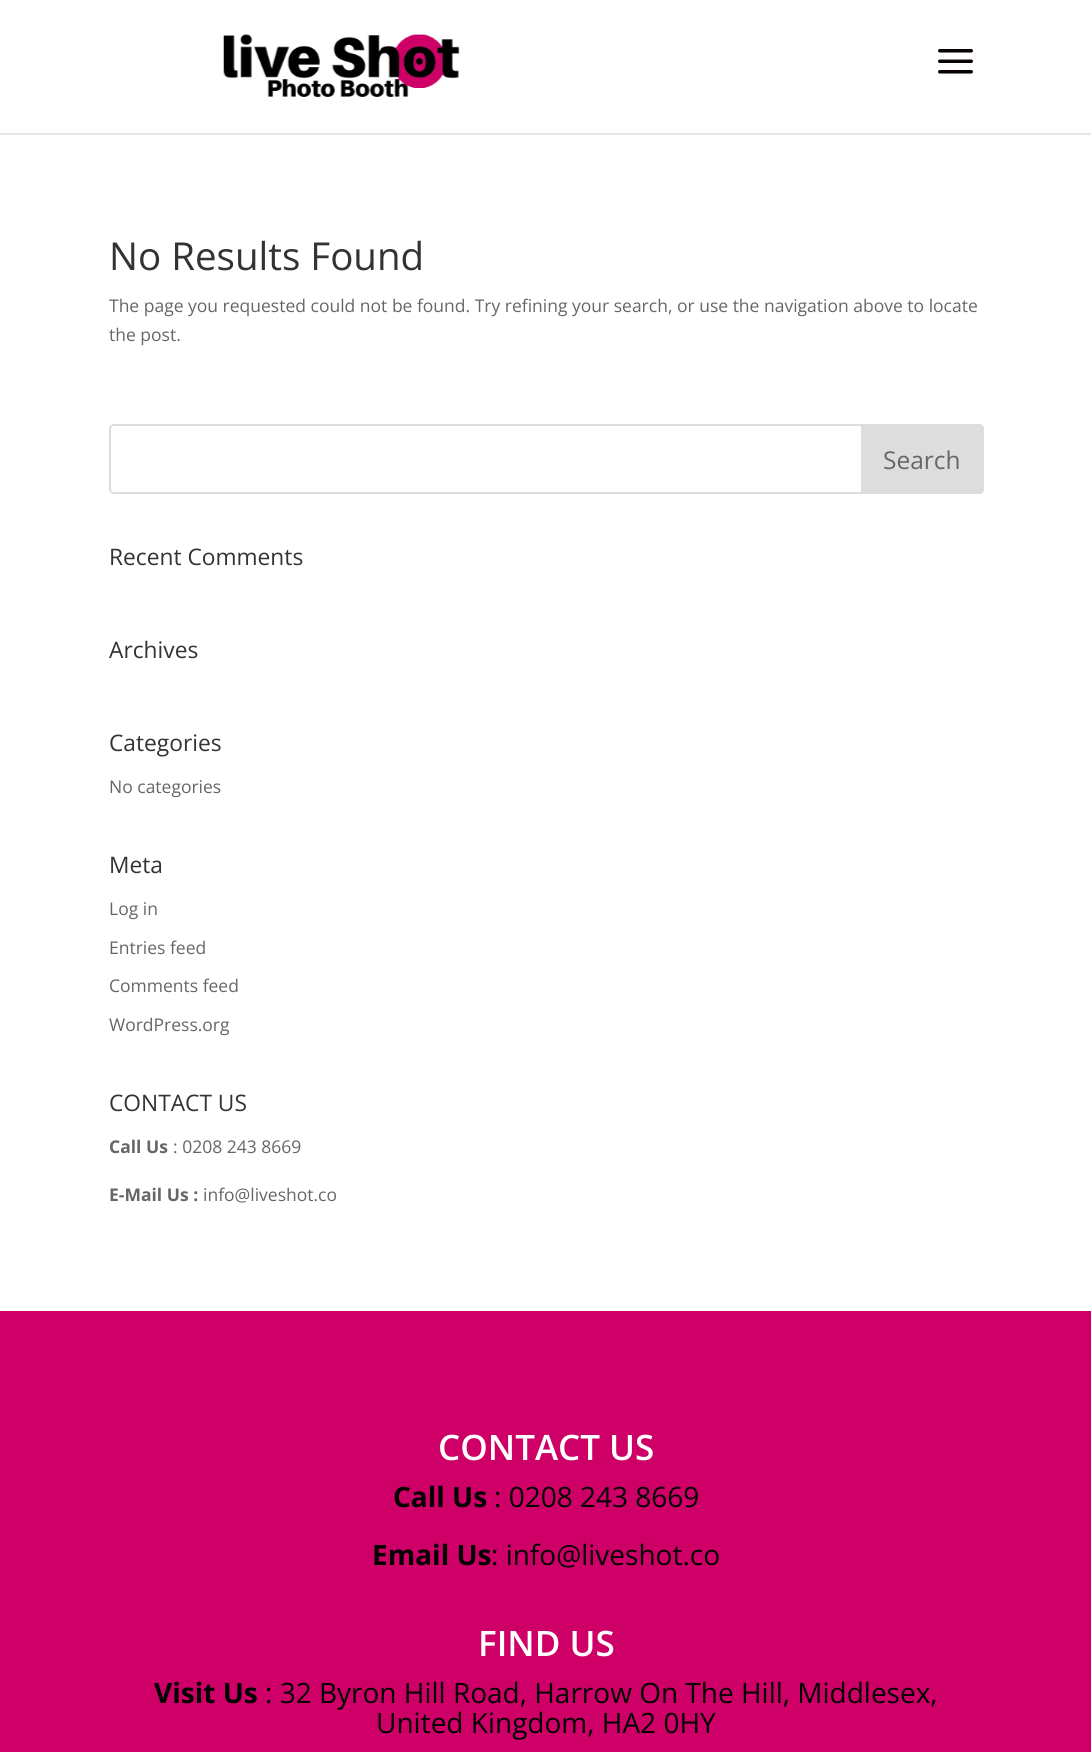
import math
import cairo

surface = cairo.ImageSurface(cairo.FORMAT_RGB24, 1091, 1752)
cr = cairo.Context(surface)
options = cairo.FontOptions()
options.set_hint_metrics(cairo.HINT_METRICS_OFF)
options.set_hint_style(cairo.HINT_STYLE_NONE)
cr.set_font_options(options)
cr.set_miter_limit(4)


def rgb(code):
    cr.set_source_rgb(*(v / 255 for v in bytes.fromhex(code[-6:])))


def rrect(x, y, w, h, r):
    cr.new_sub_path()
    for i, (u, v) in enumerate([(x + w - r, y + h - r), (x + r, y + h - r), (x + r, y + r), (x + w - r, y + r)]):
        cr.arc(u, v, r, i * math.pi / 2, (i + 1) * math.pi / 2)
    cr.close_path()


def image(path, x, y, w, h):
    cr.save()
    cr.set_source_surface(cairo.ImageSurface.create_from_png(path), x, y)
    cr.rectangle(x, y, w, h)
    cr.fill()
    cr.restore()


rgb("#ffffff")
cr.paint()
rgb("#e6e6e6")
cr.rectangle(0, 133, 1091, 2)
cr.fill()
image("img/1.png", 223, 34, 237, 63)
image("img/2.png", 938, 49, 35, 25)
rrect(110, 425, 873, 68, 4)
rgb("#dddddd")
cr.stroke()
cr.new_path()
cr.move_to(862, 425)
cr.line_to(979, 425)
cr.curve_to(981, 425, 983, 427, 983, 429)
cr.line_to(983, 489)
cr.curve_to(983, 491, 981, 493, 979, 493)
cr.line_to(862, 493)
cr.close_path()
cr.fill_preserve()
cr.stroke()
rgb("#ce0067")
cr.rectangle(0, 1311, 1091, 441)
cr.fill()
cr.select_font_face("Open Sans")
cr.set_font_size(38.5)
rgb("#333333")
cr.move_to(109, 270)
cr.show_text("No Results Found")
cr.set_font_size(17.5)
rgb("#666666")
cr.move_to(109, 312)
cr.show_text("The page you requested could not be found. Try refining your search, or use the navigation above to locate")
cr.move_to(109, 341)
cr.show_text("the post.")
cr.set_font_size(24.5)
cr.move_to(883, 469)
cr.show_text("Search")
cr.set_font_size(22.75)
rgb("#333333")
for x, y, s in [
    (109, 565, "Recent Comments"),
    (109, 658, "Archives"),
    (109, 751, "Categories"),
]:
    cr.move_to(x, y)
    cr.show_text(s)
cr.set_font_size(17.5)
rgb("#666666")
cr.move_to(109, 793)
cr.show_text("No categories")
cr.set_font_size(22.75)
rgb("#333333")
cr.move_to(109, 873)
cr.show_text("Meta")
cr.set_font_size(17.5)
rgb("#666666")
for x, y, s in [
    (109, 915, "Log in"),
    (109, 954, "Entries feed"),
    (109, 992, "Comments feed"),
    (109, 1031, "WordPress.org"),
]:
    cr.move_to(x, y)
    cr.show_text(s)
cr.set_font_size(22.75)
rgb("#333333")
cr.move_to(109, 1111)
cr.show_text("CONTACT US")
cr.select_font_face("Open Sans", cairo.FONT_SLANT_NORMAL, cairo.FONT_WEIGHT_BOLD)
cr.set_font_size(17.5)
rgb("#666666")
cr.move_to(109, 1153)
cr.show_text("Call Us")
cr.select_font_face("Open Sans")
cr.move_to(173, 1153)
cr.show_text(": 0208 243 8669")
cr.select_font_face("Open Sans", cairo.FONT_SLANT_NORMAL, cairo.FONT_WEIGHT_BOLD)
cr.move_to(109, 1201)
cr.show_text("E-Mail Us :")
cr.select_font_face("Open Sans")
cr.move_to(203, 1201)
cr.show_text("info@liveshot.co")
cr.select_font_face("Open Sans SemiBold")
cr.set_font_size(35)
rgb("#ffffff")
cr.move_to(438, 1460)
cr.show_text("CONTACT US")
cr.select_font_face("Open Sans", cairo.FONT_SLANT_NORMAL, cairo.FONT_WEIGHT_BOLD)
cr.set_font_size(28)
rgb("#000000")
cr.move_to(393, 1507)
cr.show_text("Call Us")
cr.select_font_face("Open Sans")
cr.move_to(494, 1507)
cr.show_text(": 0208 243 8669")
cr.select_font_face("Open Sans", cairo.FONT_SLANT_NORMAL, cairo.FONT_WEIGHT_BOLD)
cr.move_to(372, 1565)
cr.show_text("Email Us")
cr.select_font_face("Open Sans")
cr.move_to(491, 1565)
cr.show_text(": info@liveshot.co")
cr.select_font_face("Open Sans SemiBold")
cr.set_font_size(35)
rgb("#ffffff")
cr.move_to(478, 1656)
cr.show_text("FIND US")
cr.select_font_face("Open Sans", cairo.FONT_SLANT_NORMAL, cairo.FONT_WEIGHT_BOLD)
cr.set_font_size(28)
rgb("#000000")
cr.move_to(154, 1703)
cr.show_text("Visit Us")
cr.select_font_face("Open Sans")
cr.move_to(265, 1703)
cr.show_text(": 32 Byron Hill Road, Harrow On The Hill, Middlesex,")
cr.move_to(376, 1733)
cr.show_text("United Kingdom, HA2 0HY")
surface.write_to_png("page.png")
